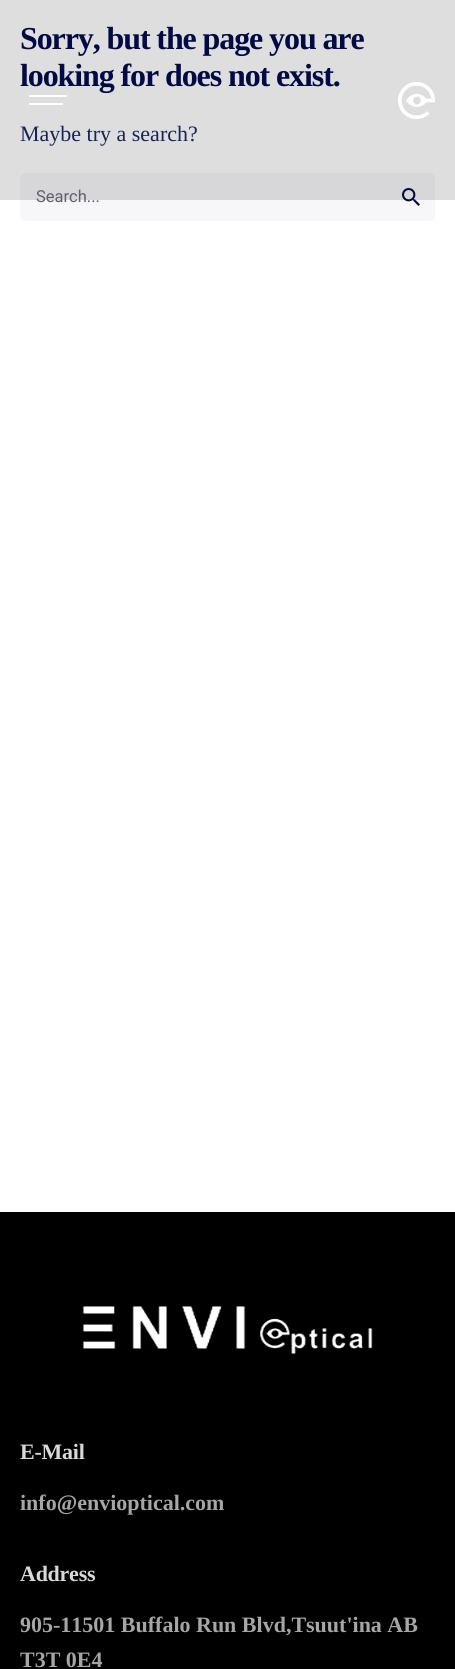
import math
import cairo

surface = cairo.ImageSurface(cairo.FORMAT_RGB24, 455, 1669)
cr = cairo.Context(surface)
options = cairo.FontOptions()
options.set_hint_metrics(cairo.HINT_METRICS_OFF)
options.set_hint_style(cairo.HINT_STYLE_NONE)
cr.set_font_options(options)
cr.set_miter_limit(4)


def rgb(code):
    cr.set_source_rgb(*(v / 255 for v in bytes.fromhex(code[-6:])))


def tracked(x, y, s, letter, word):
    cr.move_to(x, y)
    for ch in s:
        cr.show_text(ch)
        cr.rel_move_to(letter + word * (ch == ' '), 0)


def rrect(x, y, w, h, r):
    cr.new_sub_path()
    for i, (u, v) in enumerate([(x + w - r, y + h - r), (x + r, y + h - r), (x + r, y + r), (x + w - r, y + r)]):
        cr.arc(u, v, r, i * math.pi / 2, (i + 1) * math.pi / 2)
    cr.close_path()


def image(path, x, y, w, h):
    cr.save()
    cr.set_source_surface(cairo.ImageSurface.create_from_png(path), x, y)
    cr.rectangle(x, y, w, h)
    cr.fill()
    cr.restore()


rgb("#ffffff")
cr.paint()
rgb("#f7f6f8")
rrect(20, 173, 415, 48, 6)
cr.fill()
image("img/2.png", 402, 188, 18, 18)
cr.set_source_rgba(0.027, 0.027, 0.027, 0.13)
cr.rectangle(0, 0, 455, 200)
cr.fill()
rgb("#ffffff")
cr.rectangle(29, 95, 38, 2)
cr.rectangle(29, 103, 34, 2)
cr.fill()
image("img/1.png", 398, 82, 37, 37)
rgb("#000000")
cr.rectangle(0, 1212, 455, 457)
cr.fill()
image("img/3.png", 82, 1306, 291, 48)
cr.select_font_face("Liberation Serif", cairo.FONT_SLANT_NORMAL, cairo.FONT_WEIGHT_BOLD)
cr.set_font_size(32)
rgb("#010a44")
tracked(20, 49, "Sorry, but the page you are", -1.1, 0)
tracked(20, 86, "looking for does not exist.", -1.1, 0)
cr.select_font_face("Liberation Serif")
cr.set_font_size(22)
rgb("#1a2357")
cr.move_to(20, 141)
cr.show_text("Maybe try a search?")
cr.select_font_face("Roboto")
cr.set_font_size(16.5)
rgb("#635d6f")
cr.move_to(36, 202)
cr.show_text("Search...")
cr.select_font_face("Liberation Serif", cairo.FONT_SLANT_NORMAL, cairo.FONT_WEIGHT_BOLD)
cr.set_font_size(22)
rgb("#d9d9d9")
tracked(20, 1459, "E-Mail", -0.25, 0)
rgb("#a6a6a6")
cr.move_to(20, 1510)
cr.show_text("info@envioptical.com")
rgb("#d9d9d9")
tracked(20, 1581, "Address", -0.25, 0)
rgb("#a6a6a6")
cr.move_to(20, 1632)
cr.show_text("905-11501 Buffalo Run Blvd,Tsuut'ina AB")
cr.move_to(20, 1667)
cr.show_text("T3T 0E4")
surface.write_to_png("page.png")
